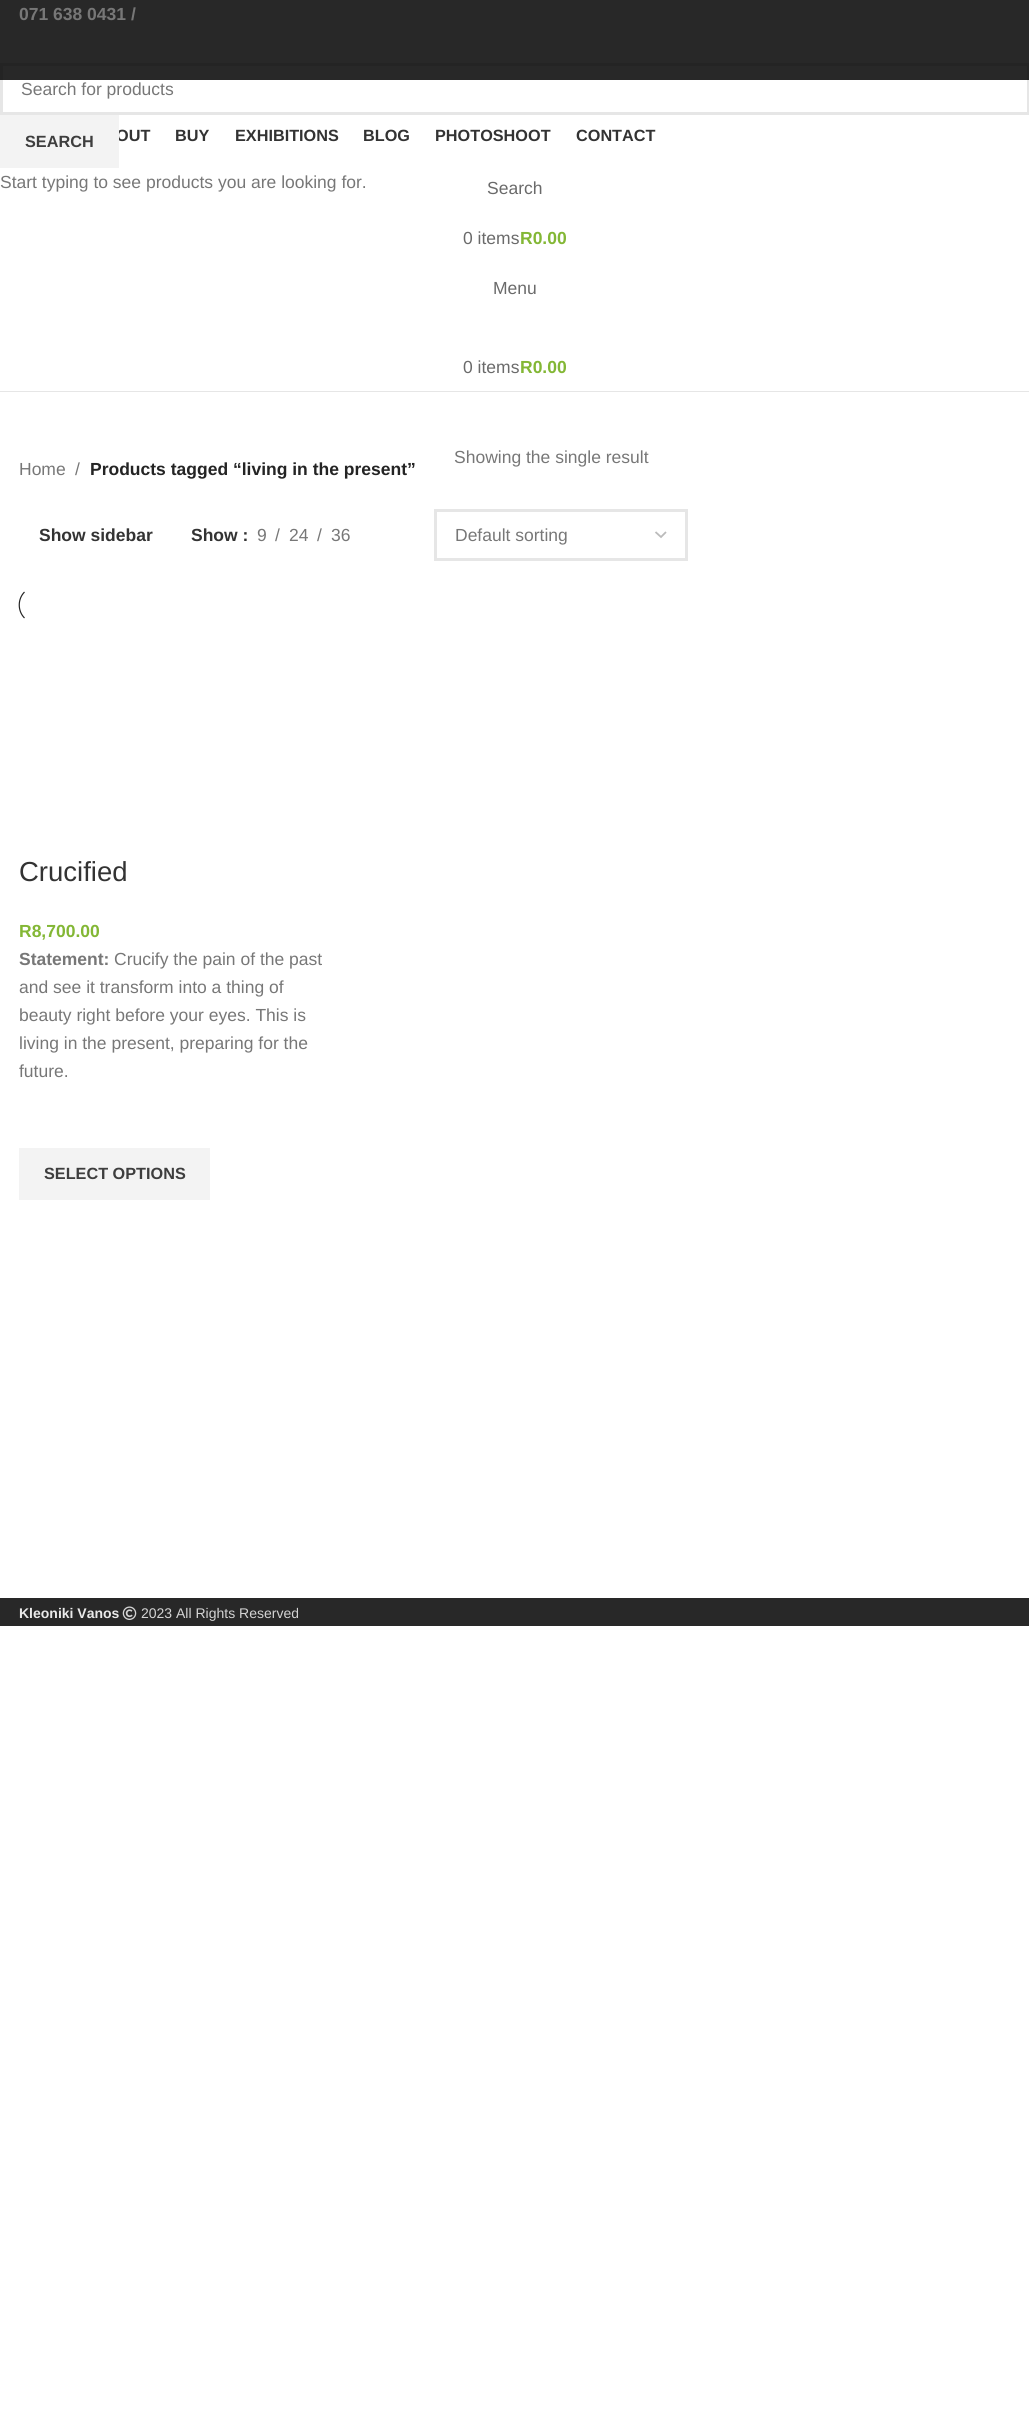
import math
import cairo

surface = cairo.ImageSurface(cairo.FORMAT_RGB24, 1029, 2410)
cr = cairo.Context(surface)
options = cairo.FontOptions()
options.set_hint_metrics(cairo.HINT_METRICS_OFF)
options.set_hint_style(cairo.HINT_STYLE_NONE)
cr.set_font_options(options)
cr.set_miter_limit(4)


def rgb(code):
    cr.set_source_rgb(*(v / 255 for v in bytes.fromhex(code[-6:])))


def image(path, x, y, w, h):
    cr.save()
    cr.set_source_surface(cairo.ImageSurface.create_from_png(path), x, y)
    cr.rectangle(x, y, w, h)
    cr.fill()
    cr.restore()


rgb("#ffffff")
cr.paint()
rgb("#282828")
cr.rectangle(0, 0, 1029, 80)
cr.fill()
rgb("#e6e6e6")
cr.rectangle(0, 391, 1029, 1)
cr.fill()
cr.new_path()
cr.move_to(655.5, 532)
cr.line_to(661, 537)
cr.line_to(666, 532)
rgb("#bbbbbb")
cr.set_line_width(1.8)
cr.stroke()
cr.rectangle(435.5, 510.5, 251, 49)
rgb("#e6e6e6")
cr.set_line_width(3)
cr.stroke()
cr.new_path()
cr.move_to(24.5, 618)
cr.curve_to(17.5, 611, 17.5, 599, 24.5, 592)
rgb("#242424")
cr.set_line_width(1.2)
cr.stroke()
rgb("#f3f3f3")
cr.rectangle(19, 1148, 191, 52)
cr.fill()
rgb("#282828")
cr.rectangle(0, 1598, 1029, 28)
cr.fill()
image("img/1.png", 122, 1606, 15, 14)
cr.rectangle(1.5, 64.5, 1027, 49)
cr.set_source_rgba(0, 0, 0, 0.1)
cr.set_line_width(3)
cr.stroke()
cr.select_font_face("Liberation Sans", cairo.FONT_SLANT_NORMAL, cairo.FONT_WEIGHT_BOLD)
cr.set_font_size(17.5)
rgb("#777777")
cr.move_to(19, 20)
cr.show_text("071 638 0431 /")
cr.set_font_size(16.25)
rgb("#333333")
for x, y, s in [
    (116, 141, "OUT"),
    (175, 141, "BUY"),
    (235, 141, "EXHIBITIONS"),
    (363, 141, "BLOG"),
    (435, 141, "PHOTOSHOOT"),
    (576, 141, "CONTACT"),
]:
    cr.move_to(x, y)
    cr.show_text(s)
cr.select_font_face("Liberation Sans")
cr.set_font_size(17.5)
rgb("#6a6a6a")
cr.move_to(487, 194)
cr.show_text("Search")
cr.move_to(463, 244)
cr.show_text("0 items")
cr.select_font_face("Liberation Sans", cairo.FONT_SLANT_NORMAL, cairo.FONT_WEIGHT_BOLD)
rgb("#83b735")
cr.move_to(520, 244)
cr.show_text("R0.00")
cr.select_font_face("Liberation Sans")
rgb("#6a6a6a")
cr.move_to(493, 294)
cr.show_text("Menu")
cr.move_to(463, 373)
cr.show_text("0 items")
cr.select_font_face("Liberation Sans", cairo.FONT_SLANT_NORMAL, cairo.FONT_WEIGHT_BOLD)
rgb("#83b735")
cr.move_to(520, 373)
cr.show_text("R0.00")
cr.select_font_face("Liberation Sans")
rgb("#777777")
for x, y, s in [
    (454, 463, "Showing the single result"),
    (19, 475, "Home"),
    (75, 475, "/"),
]:
    cr.move_to(x, y)
    cr.show_text(s)
cr.select_font_face("Liberation Sans", cairo.FONT_SLANT_NORMAL, cairo.FONT_WEIGHT_BOLD)
rgb("#242424")
cr.move_to(90, 475)
cr.show_text("Products tagged “living in the present”")
rgb("#333333")
cr.move_to(39, 541)
cr.show_text("Show sidebar")
cr.move_to(191, 541)
cr.show_text("Show :")
cr.select_font_face("Liberation Sans")
rgb("#777777")
for x, y, s in [
    (257, 541, "9"),
    (275, 541, "/"),
    (289, 541, "24"),
    (317, 541, "/"),
    (331, 541, "36"),
    (455, 541, "Default sorting"),
]:
    cr.move_to(x, y)
    cr.show_text(s)
cr.set_font_size(27.5)
rgb("#333333")
cr.move_to(19, 881)
cr.show_text("Crucified")
cr.select_font_face("Liberation Sans", cairo.FONT_SLANT_NORMAL, cairo.FONT_WEIGHT_BOLD)
cr.set_font_size(17.5)
rgb("#83b735")
cr.move_to(19, 937)
cr.show_text("R8,700.00")
rgb("#777777")
cr.move_to(19, 965)
cr.show_text("Statement:")
cr.select_font_face("Liberation Sans")
for x, y, s in [
    (114, 965, "Crucify the pain of the past"),
    (19, 993, "and see it transform into a thing of"),
    (19, 1021, "beauty right before your eyes. This is"),
    (19, 1049, "living in the present, preparing for the"),
    (19, 1077, "future."),
]:
    cr.move_to(x, y)
    cr.show_text(s)
cr.select_font_face("Liberation Sans", cairo.FONT_SLANT_NORMAL, cairo.FONT_WEIGHT_BOLD)
cr.set_font_size(16.25)
rgb("#3e3e3e")
cr.move_to(44, 1179)
cr.show_text("SELECT OPTIONS")
cr.set_font_size(14)
rgb("#eaeaea")
cr.move_to(19, 1618)
cr.show_text("Kleoniki Vanos")
cr.select_font_face("Liberation Sans")
rgb("#d4d4d4")
cr.move_to(141, 1618)
cr.show_text("2023 All Rights Reserved")
cr.set_font_size(17.5)
rgb("#777777")
cr.move_to(21, 95)
cr.show_text("Search for products")
rgb("#f3f3f3")
cr.rectangle(0, 115, 119, 53)
cr.fill()
cr.select_font_face("Liberation Sans", cairo.FONT_SLANT_NORMAL, cairo.FONT_WEIGHT_BOLD)
cr.set_font_size(16.25)
rgb("#3e3e3e")
cr.move_to(25, 147)
cr.show_text("SEARCH")
cr.select_font_face("Liberation Sans")
cr.set_font_size(17.5)
rgb("#777777")
cr.move_to(0, 188)
cr.show_text("Start typing to see products you are looking for.")
surface.write_to_png("page.png")
